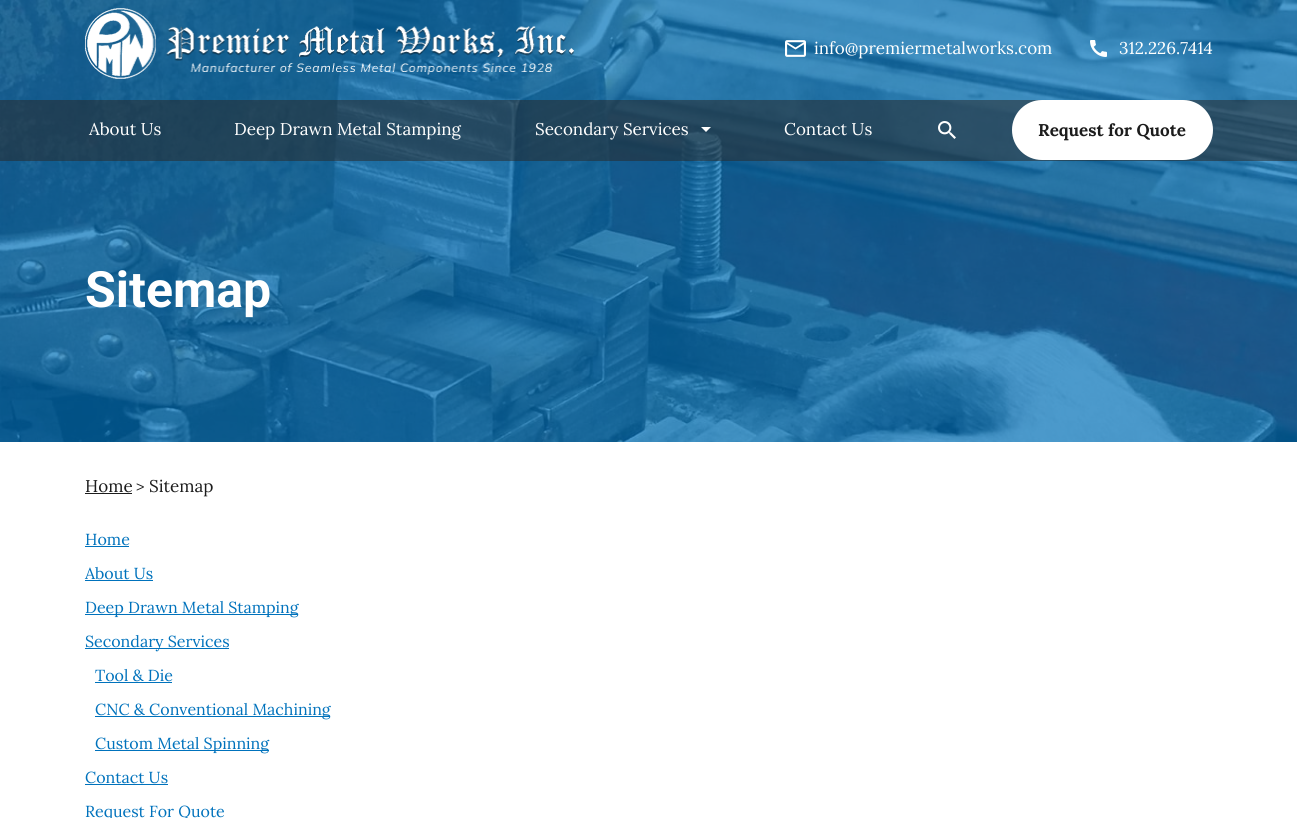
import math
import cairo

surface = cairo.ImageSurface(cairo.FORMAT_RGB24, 1297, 818)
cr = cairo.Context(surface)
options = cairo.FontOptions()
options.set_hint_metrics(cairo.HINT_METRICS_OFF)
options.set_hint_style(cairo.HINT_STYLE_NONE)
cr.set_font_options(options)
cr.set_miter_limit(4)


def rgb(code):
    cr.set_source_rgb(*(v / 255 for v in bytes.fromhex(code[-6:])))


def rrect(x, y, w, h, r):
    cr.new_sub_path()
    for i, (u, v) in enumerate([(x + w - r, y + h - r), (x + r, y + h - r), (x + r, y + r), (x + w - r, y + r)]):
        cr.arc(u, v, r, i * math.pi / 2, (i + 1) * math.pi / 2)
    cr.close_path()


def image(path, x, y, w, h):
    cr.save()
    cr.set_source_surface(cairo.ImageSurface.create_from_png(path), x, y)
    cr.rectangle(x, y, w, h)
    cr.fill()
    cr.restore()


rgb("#ffffff")
cr.paint()
image("img/1.png", 0, 0, 1297, 442)
image("img/2.png", 85, 8, 490, 71)
image("img/3.png", 785, 40, 21, 17)
image("img/4.png", 1090, 40, 17, 17)
cr.set_source_rgba(0.165, 0.165, 0.165, 0.54)
cr.rectangle(0, 100, 1297, 61)
cr.fill()
rgb("#ffffff")
cr.new_path()
cr.move_to(701, 127)
cr.line_to(706, 132)
cr.line_to(711, 127)
cr.close_path()
cr.fill()
image("img/5.png", 938, 121, 18, 18)
rrect(1012, 100, 201, 60, 30)
cr.fill()
for x, y, w, h, color in [
    (85, 493, 47, 1, "#1c1c1c"),
    (85, 546, 44, 1, "#0072bc"),
    (85, 580, 68, 1, "#0072bc"),
    (85, 614, 213, 1, "#0072bc"),
    (85, 648, 144, 1, "#0072bc"),
    (95, 682, 77, 1, "#0072bc"),
    (95, 716, 235, 1, "#0072bc"),
    (95, 750, 174, 1, "#0072bc"),
    (85, 784, 83, 1, "#0072bc"),
]:
    rgb(color)
    cr.rectangle(x, y, w, h)
    cr.fill()
cr.select_font_face("Lora")
cr.set_font_size(17)
rgb("#ffffff")
for x, y, s in [
    (814, 54, "info@premiermetalworks.com"),
    (1119, 54, "312.226.7414"),
    (89, 135, "About Us"),
    (234, 135, "Deep Drawn Metal Stamping"),
    (535, 135, "Secondary Services"),
    (784, 135, "Contact Us"),
]:
    cr.move_to(x, y)
    cr.show_text(s)
cr.select_font_face("Lora", cairo.FONT_SLANT_NORMAL, cairo.FONT_WEIGHT_BOLD)
rgb("#1c1c1c")
cr.move_to(1038, 136)
cr.show_text("Request for Quote")
cr.select_font_face("Roboto", cairo.FONT_SLANT_NORMAL, cairo.FONT_WEIGHT_BOLD)
cr.set_font_size(50)
rgb("#ffffff")
cr.move_to(85, 307)
cr.show_text("Sitemap")
cr.select_font_face("Lora")
cr.set_font_size(17)
rgb("#1c1c1c")
cr.move_to(85, 492)
cr.show_text("Home")
cr.set_font_size(16)
cr.move_to(136, 492)
cr.show_text(">")
cr.set_font_size(17)
cr.move_to(149, 492)
cr.show_text("Sitemap")
cr.set_font_size(16)
rgb("#0072bc")
for x, y, s in [
    (85, 545, "Home"),
    (85, 579, "About Us"),
    (85, 613, "Deep Drawn Metal Stamping"),
    (85, 647, "Secondary Services"),
    (95, 681, "Tool & Die"),
    (95, 715, "CNC & Conventional Machining"),
    (95, 749, "Custom Metal Spinning"),
    (85, 783, "Contact Us"),
    (85, 817, "Request For Quote"),
]:
    cr.move_to(x, y)
    cr.show_text(s)
surface.write_to_png("page.png")
